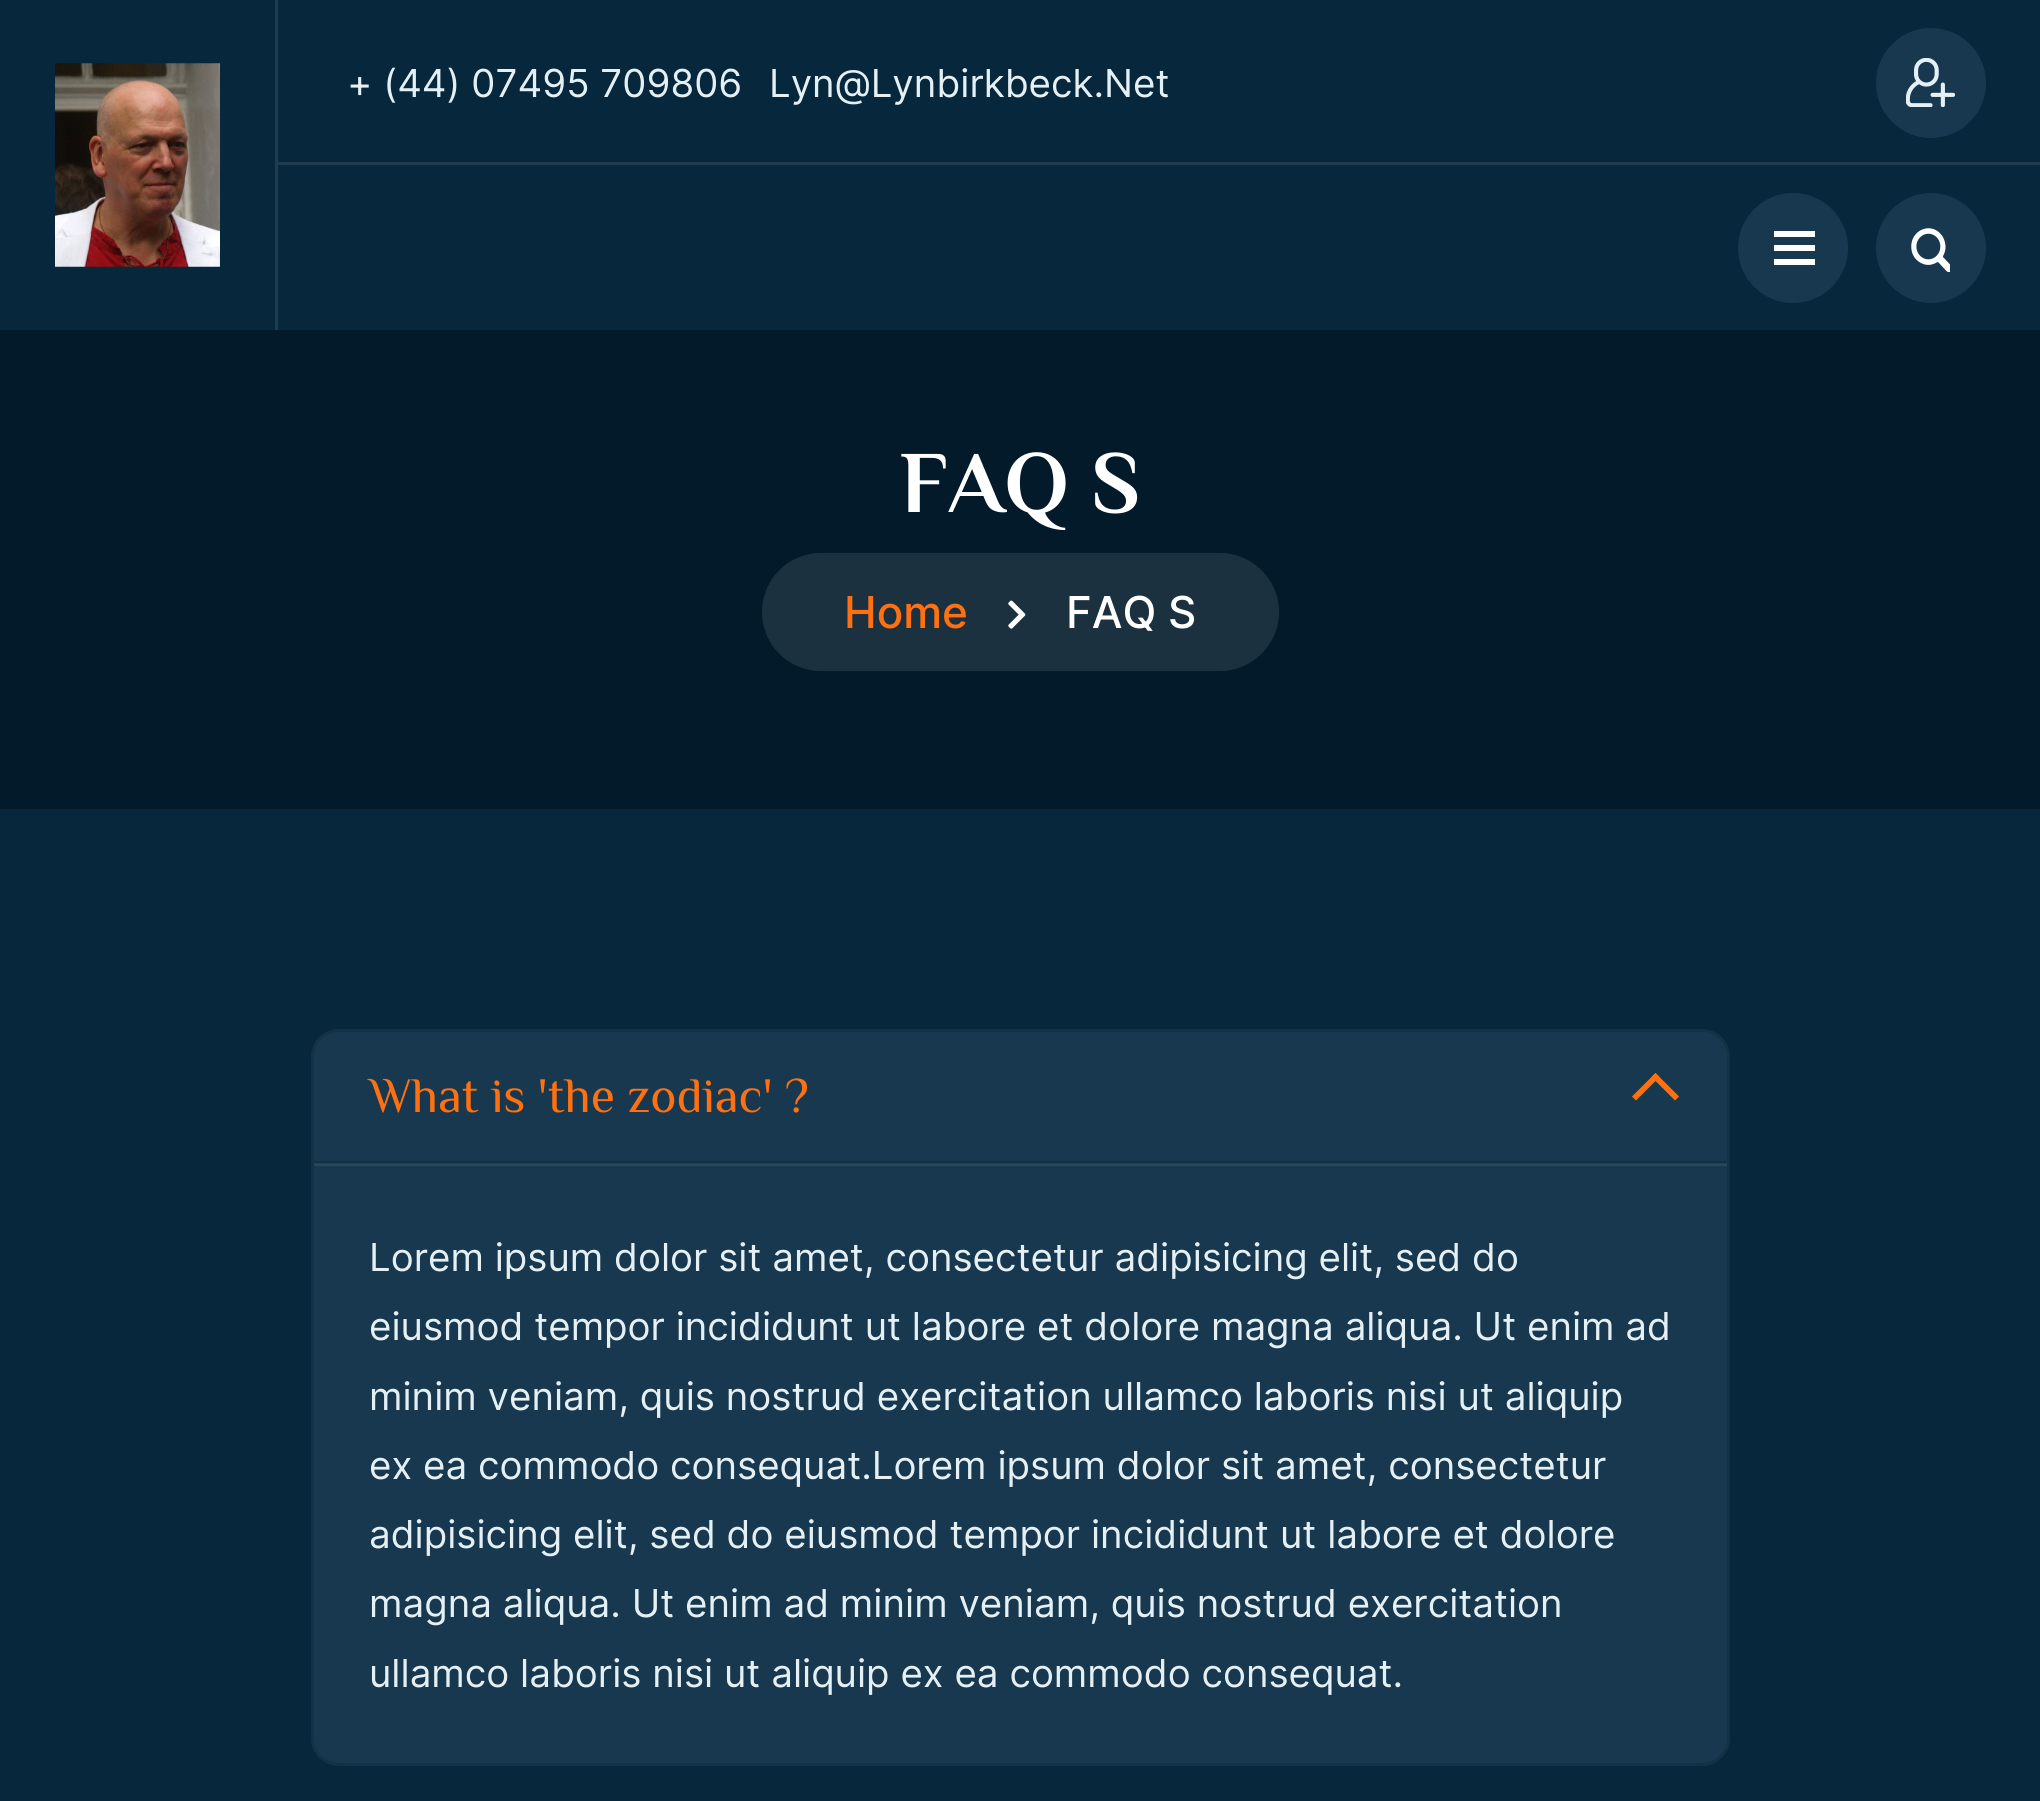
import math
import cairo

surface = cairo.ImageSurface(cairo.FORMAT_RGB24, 2040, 1801)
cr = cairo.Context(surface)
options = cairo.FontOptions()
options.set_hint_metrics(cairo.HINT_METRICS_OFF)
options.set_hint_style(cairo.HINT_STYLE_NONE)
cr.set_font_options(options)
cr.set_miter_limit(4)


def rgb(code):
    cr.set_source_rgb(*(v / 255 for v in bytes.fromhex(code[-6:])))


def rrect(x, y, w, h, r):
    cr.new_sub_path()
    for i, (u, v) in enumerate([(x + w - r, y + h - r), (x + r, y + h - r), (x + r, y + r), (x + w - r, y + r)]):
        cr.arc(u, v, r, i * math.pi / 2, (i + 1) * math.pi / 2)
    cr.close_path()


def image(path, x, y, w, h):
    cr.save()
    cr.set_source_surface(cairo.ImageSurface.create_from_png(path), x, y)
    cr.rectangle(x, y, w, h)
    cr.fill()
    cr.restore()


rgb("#07273c")
cr.paint()
image("img/1.png", 55, 63, 165, 204)
rgb("#203d50")
cr.rectangle(275, 0, 3, 330)
cr.fill()
rgb("#17384e")
cr.arc(1931, 83, 55, 0, 2 * math.pi)
cr.fill()
image("img/2.png", 1906, 58, 49, 49)
rgb("#203d50")
cr.rectangle(278, 162, 1762, 3)
cr.fill()
rgb("#17384e")
cr.arc(1793, 248, 55, 0, 2 * math.pi)
cr.fill()
for x, y, w, h, color in [
    (1774, 231, 41, 6, "#ffffff"),
    (1774, 245, 41, 6, "#ffffff"),
    (1774, 259, 41, 6, "#ffffff"),
]:
    rgb(color)
    cr.rectangle(x, y, w, h)
    cr.fill()
rgb("#17384e")
cr.arc(1931, 248, 55, 0, 2 * math.pi)
cr.fill()
image("img/3.png", 1911, 228, 39, 44)
rgb("#031a2a")
cr.rectangle(0, 330, 2040, 479)
cr.fill()
rgb("#1c313f")
rrect(762, 553, 517, 118, 59)
cr.fill()
image("img/4.png", 1008, 600, 18, 29)
rgb("#17384e")
rrect(311, 1029, 1419, 737, 28)
cr.fill()
rgb("#2a485c")
cr.rectangle(314, 1164, 1413, 2)
cr.fill()
rrect(312.5, 1030.5, 1416, 734, 26.5)
cr.set_source_rgba(0, 0, 0, 0.12)
cr.set_line_width(3)
cr.stroke()
rgb("#143043")
cr.rectangle(314, 1161, 1413, 2)
cr.fill()
rgb("#274152")
cr.rectangle(314, 1163, 1413, 1)
cr.fill()
rgb("#ff7010")
cr.new_path()
cr.move_to(1655.5, 1073)
cr.line_to(1679, 1096.5)
cr.line_to(1675, 1100.5)
cr.line_to(1651.5, 1077)
cr.close_path()
cr.fill()
cr.new_path()
cr.move_to(1655.5, 1073)
cr.line_to(1659.5, 1077)
cr.line_to(1636, 1100.5)
cr.line_to(1632, 1096.5)
cr.close_path()
cr.fill()
cr.select_font_face("Inter")
cr.set_font_size(38.5)
rgb("#e5f0f5")
cr.move_to(347, 97)
cr.show_text("+ (44) 07495 709806")
cr.move_to(769, 97)
cr.show_text("Lyn@Lynbirkbeck.Net")
cr.select_font_face("Philosopher", cairo.FONT_SLANT_NORMAL, cairo.FONT_WEIGHT_BOLD)
cr.set_font_size(88)
rgb("#ffffff")
cr.move_to(900, 512)
cr.show_text("FAQ S")
cr.select_font_face("Inter Medium")
cr.set_font_size(44)
rgb("#ff7010")
cr.move_to(844, 628)
cr.show_text("Home")
rgb("#ffffff")
cr.move_to(1066, 628)
cr.show_text("FAQ S")
cr.select_font_face("Philosopher")
cr.set_font_size(49.5)
rgb("#ff7010")
cr.move_to(369, 1112)
cr.show_text("What is 'the zodiac' ?")
cr.select_font_face("Inter")
cr.set_font_size(38.5)
rgb("#e5f0f5")
for x, y, s in [
    (369, 1271, "Lorem ipsum dolor sit amet, consectetur adipisicing elit, sed do"),
    (369, 1340, "eiusmod tempor incididunt ut labore et dolore magna aliqua. Ut enim ad"),
    (369, 1410, "minim veniam, quis nostrud exercitation ullamco laboris nisi ut aliquip"),
    (369, 1479, "ex ea commodo consequat.Lorem ipsum dolor sit amet, consectetur"),
    (369, 1548, "adipisicing elit, sed do eiusmod tempor incididunt ut labore et dolore"),
    (369, 1617, "magna aliqua. Ut enim ad minim veniam, quis nostrud exercitation"),
    (369, 1687, "ullamco laboris nisi ut aliquip ex ea commodo consequat."),
]:
    cr.move_to(x, y)
    cr.show_text(s)
surface.write_to_png("page.png")
